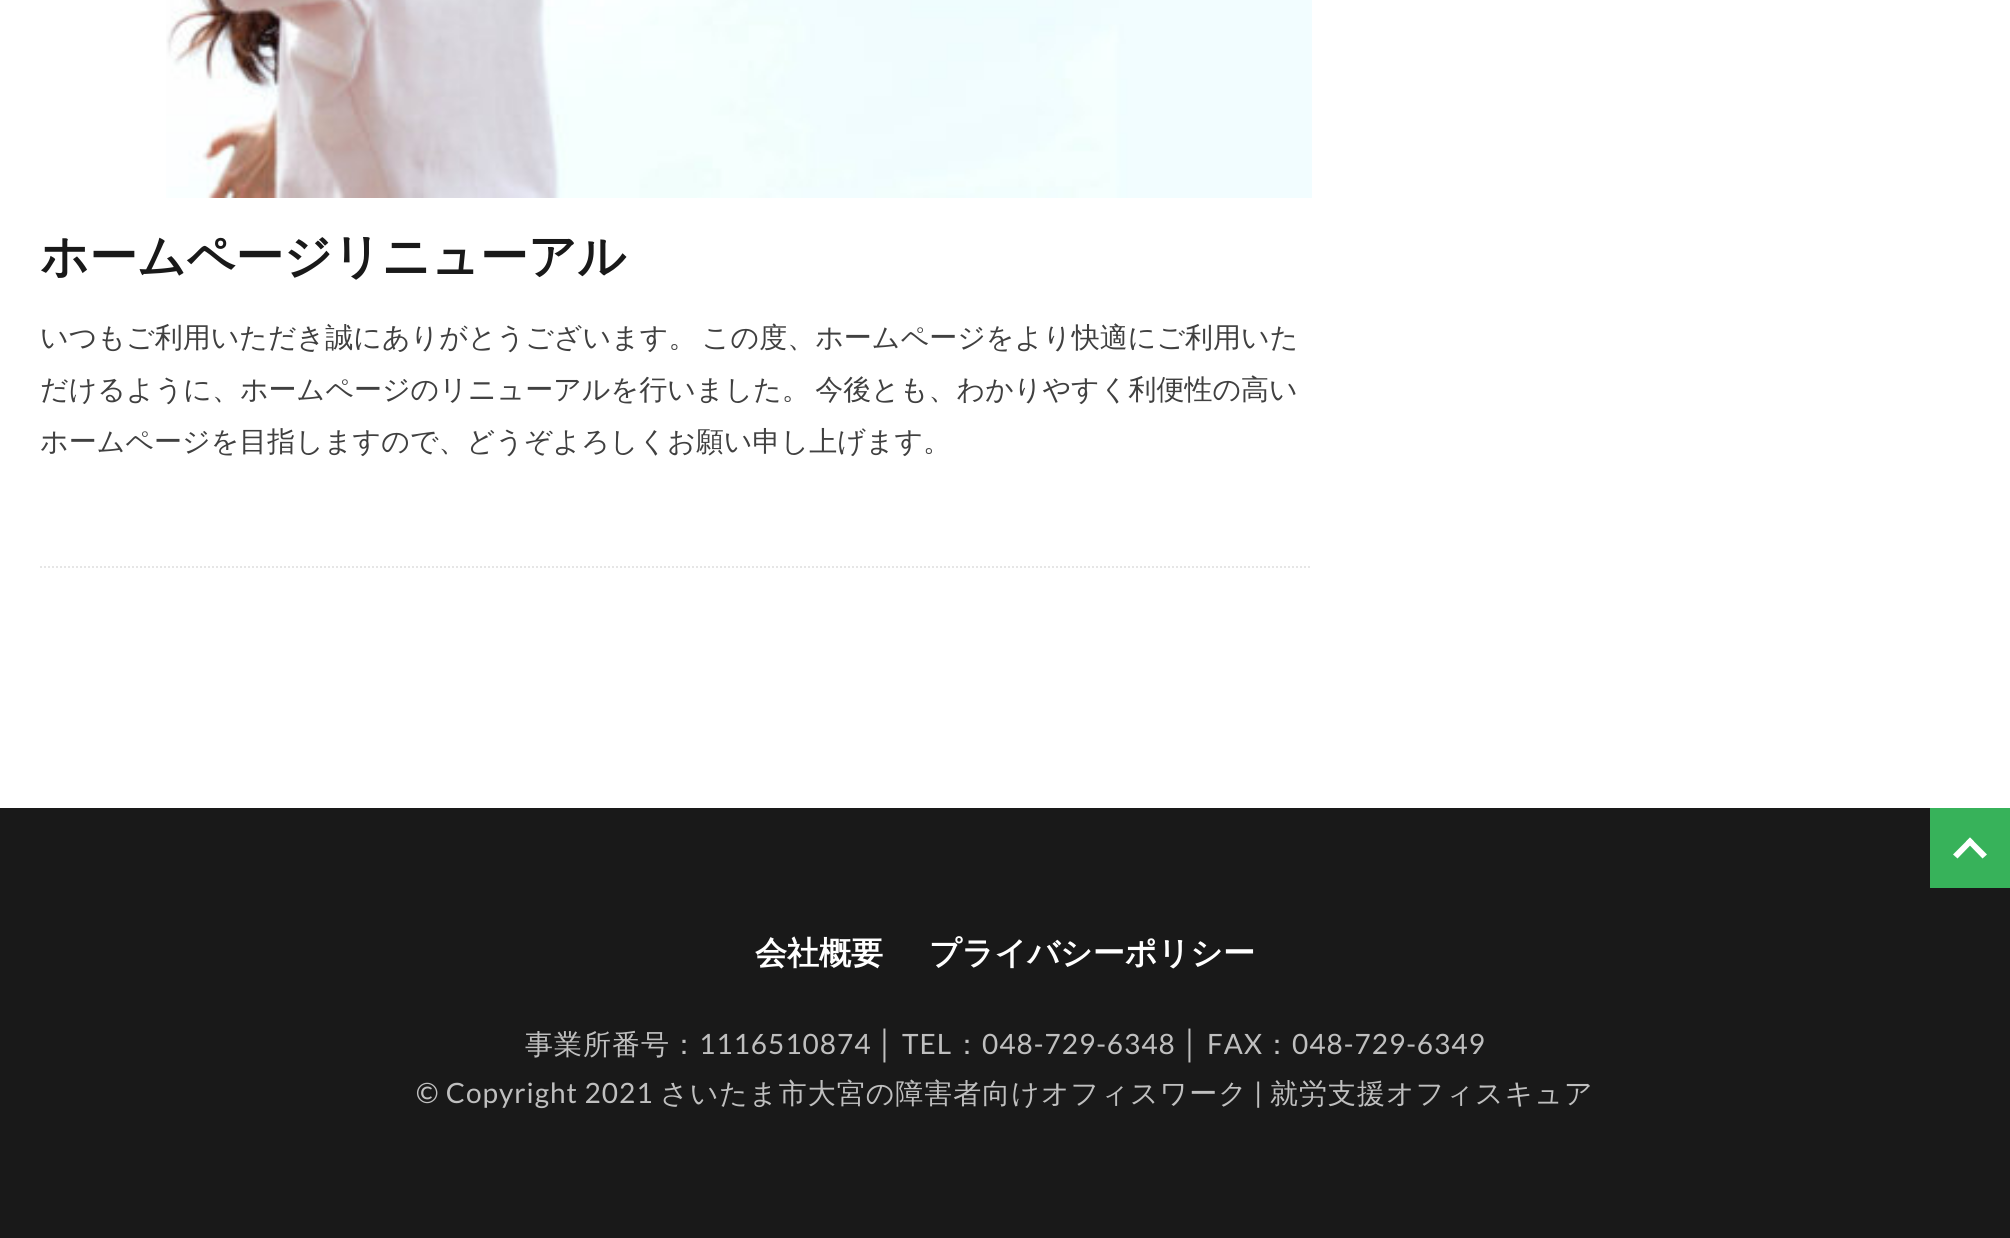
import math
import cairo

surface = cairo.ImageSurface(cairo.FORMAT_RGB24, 2010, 1238)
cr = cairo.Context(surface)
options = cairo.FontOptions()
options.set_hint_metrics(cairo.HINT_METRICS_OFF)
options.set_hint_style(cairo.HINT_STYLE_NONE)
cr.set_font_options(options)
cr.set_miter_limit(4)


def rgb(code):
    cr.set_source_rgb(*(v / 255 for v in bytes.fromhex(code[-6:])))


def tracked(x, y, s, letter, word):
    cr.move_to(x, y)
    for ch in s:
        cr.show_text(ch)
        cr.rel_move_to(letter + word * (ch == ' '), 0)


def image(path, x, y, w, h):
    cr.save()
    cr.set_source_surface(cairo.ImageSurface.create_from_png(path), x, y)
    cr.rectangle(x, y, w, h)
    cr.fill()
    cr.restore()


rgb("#ffffff")
cr.paint()
cr.new_path()
cr.move_to(40, 567)
cr.line_to(1312, 567)
rgb("#e6e6e6")
cr.set_dash([2, 2])
cr.stroke()
image("img/1.png", 166, 0, 1146, 198)
rgb("#191919")
cr.rectangle(0, 808, 2010, 430)
cr.fill()
rgb("#37b25a")
cr.rectangle(1930, 808, 80, 80)
cr.fill()
rgb("#ffffff")
cr.new_path()
cr.move_to(1953, 854.5)
cr.line_to(1970, 837.5)
cr.line_to(1974, 841.5)
cr.line_to(1957.5, 858.5)
cr.close_path()
cr.fill()
cr.new_path()
cr.move_to(1966, 841.5)
cr.line_to(1970, 837.5)
cr.line_to(1987, 854.5)
cr.line_to(1982.5, 858.5)
cr.close_path()
cr.fill()
cr.select_font_face("WenQuanYi Zen Hei", cairo.FONT_SLANT_NORMAL, cairo.FONT_WEIGHT_BOLD)
cr.set_font_size(48)
rgb("#191919")
cr.move_to(40, 273)
cr.show_text("ホームページリニューアル")
cr.select_font_face("WenQuanYi Zen Hei Medium")
cr.set_font_size(28)
rgb("#404040")
tracked(40, 347, "いつもご利用いただき誠にありがとうございます。 この度、ホームページをより快適にご利用いた", 0, -3)
tracked(40, 399, "だけるように、ホームページのリニューアルを行いました。 今後とも、わかりやすく利便性の高い", 0, -3)
cr.move_to(40, 451)
cr.show_text("ホームページを目指しますので、どうぞよろしくお願い申し上げます。")
cr.select_font_face("WenQuanYi Zen Hei", cairo.FONT_SLANT_NORMAL, cairo.FONT_WEIGHT_BOLD)
cr.set_font_size(32)
rgb("#ffffff")
cr.move_to(755, 964)
cr.show_text("会社概要")
cr.move_to(929, 964)
cr.show_text("プライバシーポリシー")
cr.select_font_face("WenQuanYi Zen Hei Medium")
cr.set_font_size(28)
rgb("#bfbfbf")
tracked(525, 1054, "事業所番号：", 1, 0)
cr.select_font_face("Lato")
tracked(699, 1054, "1116510874", 1, 0)
cr.select_font_face("Liberation Sans")
tracked(877, 1054, "│", 1, 0)
cr.select_font_face("Lato")
tracked(902, 1054, "TEL", 1, 0)
cr.select_font_face("WenQuanYi Zen Hei Medium")
tracked(953, 1054, "：", 1, 0)
cr.select_font_face("Lato")
tracked(982, 1054, "048-729-6348", 1, 0)
cr.select_font_face("Liberation Sans")
tracked(1182, 1054, "│", 1, 0)
cr.select_font_face("Lato")
tracked(1207, 1054, "FAX", 1, 0)
cr.select_font_face("WenQuanYi Zen Hei Medium")
tracked(1263, 1054, "：", 1, 0)
cr.select_font_face("Lato")
tracked(1292, 1054, "048-729-6349", 1, 0)
tracked(416, 1103, "© Copyright 2021", 1, 0)
cr.select_font_face("WenQuanYi Zen Hei Medium")
tracked(660, 1103, "さいたま市大宮の障害者向けオフィスワーク", 1, 0)
cr.select_font_face("Lato")
tracked(1254, 1103, "|", 1, 0)
cr.select_font_face("WenQuanYi Zen Hei Medium")
tracked(1270, 1103, "就労支援オフィスキュア", 1, 0)
surface.write_to_png("page.png")
